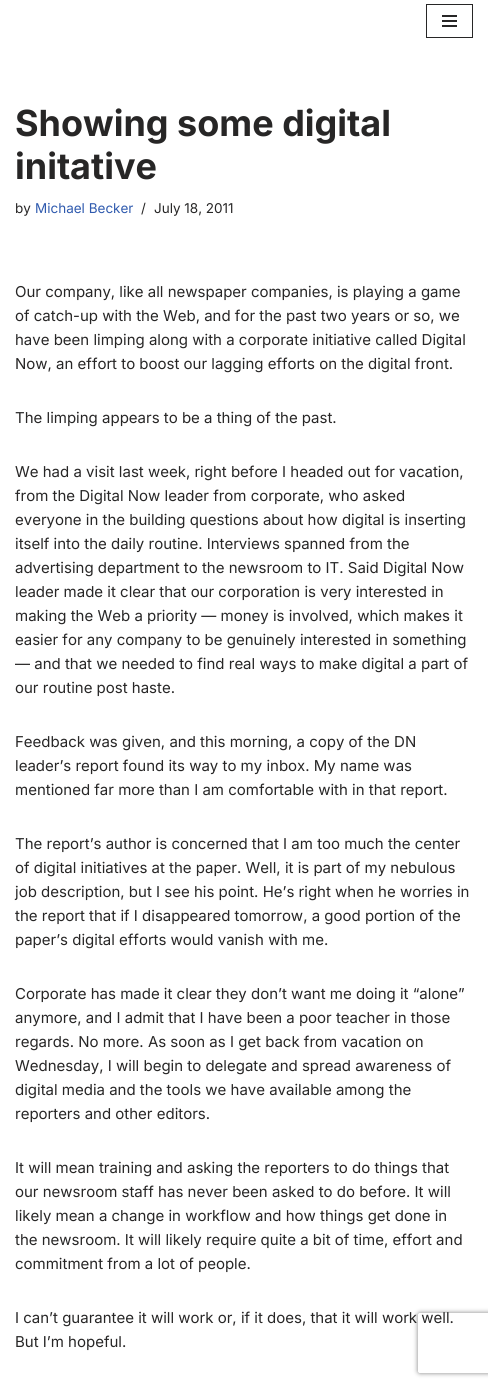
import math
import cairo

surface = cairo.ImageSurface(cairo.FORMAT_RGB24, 488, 1387)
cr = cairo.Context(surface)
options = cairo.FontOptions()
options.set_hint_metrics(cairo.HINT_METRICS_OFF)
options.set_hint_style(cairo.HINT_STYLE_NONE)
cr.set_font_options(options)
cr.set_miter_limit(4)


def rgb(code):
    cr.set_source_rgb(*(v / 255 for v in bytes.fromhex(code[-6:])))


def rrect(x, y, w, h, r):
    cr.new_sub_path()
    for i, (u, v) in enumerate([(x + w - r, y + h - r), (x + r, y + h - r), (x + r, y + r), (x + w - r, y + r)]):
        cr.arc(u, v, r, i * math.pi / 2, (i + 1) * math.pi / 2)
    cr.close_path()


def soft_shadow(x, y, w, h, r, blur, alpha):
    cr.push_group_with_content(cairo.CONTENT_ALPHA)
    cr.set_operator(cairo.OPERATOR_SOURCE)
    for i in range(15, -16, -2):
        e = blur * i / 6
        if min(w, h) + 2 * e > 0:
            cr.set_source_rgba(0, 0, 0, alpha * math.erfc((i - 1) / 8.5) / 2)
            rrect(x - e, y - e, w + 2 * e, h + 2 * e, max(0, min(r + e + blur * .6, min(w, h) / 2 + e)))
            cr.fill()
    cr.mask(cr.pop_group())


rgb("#ffffff")
cr.paint()
cr.rectangle(426.5, 4.5, 46, 33)
rgb("#272626")
cr.set_line_width(1)
cr.stroke()
for x, y, w, h, color in [
    (442, 15, 15, 2, "#272626"),
    (442, 20, 15, 2, "#272626"),
    (442, 25, 15, 2, "#272626"),
]:
    rgb(color)
    cr.rectangle(x, y, w, h)
    cr.fill()
cr.save()
cr.set_fill_rule(cairo.FILL_RULE_EVEN_ODD)
cr.new_path()
cr.move_to(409, 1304)
cr.line_to(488, 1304)
cr.line_to(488, 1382)
cr.line_to(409, 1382)
cr.close_path()
cr.move_to(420, 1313)
cr.line_to(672, 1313)
cr.curve_to(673, 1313, 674, 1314, 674, 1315)
cr.line_to(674, 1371)
cr.curve_to(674, 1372, 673, 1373, 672, 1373)
cr.line_to(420, 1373)
cr.curve_to(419, 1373, 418, 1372, 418, 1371)
cr.line_to(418, 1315)
cr.curve_to(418, 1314, 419, 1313, 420, 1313)
cr.close_path()
cr.clip()
rgb("#808080")
soft_shadow(418, 1313, 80, 60, 2, 2.5, 1)
cr.restore()
cr.select_font_face("Inter", cairo.FONT_SLANT_NORMAL, cairo.FONT_WEIGHT_BOLD)
cr.set_font_size(36)
cr.move_to(15, 136)
cr.show_text("Showing some digital")
cr.move_to(15, 179)
cr.show_text("initative")
cr.select_font_face("Inter")
cr.set_font_size(13.5)
cr.move_to(15, 213)
cr.show_text("by")
rgb("#2f5aae")
cr.move_to(35, 213)
cr.show_text("Michael Becker")
rgb("#272626")
cr.move_to(141, 213)
cr.show_text("/")
cr.move_to(154, 213)
cr.show_text("July 18, 2011")
cr.set_font_size(15)
for x, y, s in [
    (15, 297, "Our company, like all newspaper companies, is playing a game"),
    (15, 321, "of catch-up with the Web, and for the past two years or so, we"),
    (15, 345, "have been limping along with a corporate initiative called Digital"),
    (15, 369, "Now, an effort to boost our lagging efforts on the digital front."),
    (15, 423, "The limping appears to be a thing of the past."),
    (15, 477, "We had a visit last week, right before I headed out for vacation,"),
    (15, 501, "from the Digital Now leader from corporate, who asked"),
    (15, 525, "everyone in the building questions about how digital is inserting"),
    (15, 549, "itself into the daily routine. Interviews spanned from the"),
    (15, 573, "advertising department to the newsroom to IT. Said Digital Now"),
    (15, 597, "leader made it clear that our corporation is very interested in"),
    (15, 621, "making the Web a priority — money is involved, which makes it"),
    (15, 645, "easier for any company to be genuinely interested in something"),
    (15, 669, "— and that we needed to find real ways to make digital a part of"),
    (15, 693, "our routine post haste."),
    (15, 747, "Feedback was given, and this morning, a copy of the DN"),
    (15, 771, "leader’s report found its way to my inbox. My name was"),
    (15, 795, "mentioned far more than I am comfortable with in that report."),
    (15, 849, "The report’s author is concerned that I am too much the center"),
    (15, 873, "of digital initiatives at the paper. Well, it is part of my nebulous"),
    (15, 897, "job description, but I see his point. He’s right when he worries in"),
    (15, 921, "the report that if I disappeared tomorrow, a good portion of the"),
    (15, 945, "paper’s digital efforts would vanish with me."),
    (15, 999, "Corporate has made it clear they don’t want me doing it “alone”"),
    (15, 1023, "anymore, and I admit that I have been a poor teacher in those"),
    (15, 1047, "regards. No more. As soon as I get back from vacation on"),
    (15, 1071, "Wednesday, I will begin to delegate and spread awareness of"),
    (15, 1095, "digital media and the tools we have available among the"),
    (15, 1119, "reporters and other editors."),
    (15, 1173, "It will mean training and asking the reporters to do things that"),
    (15, 1197, "our newsroom staff has never been asked to do before. It will"),
    (15, 1221, "likely mean a change in workflow and how things get done in"),
    (15, 1245, "the newsroom. It will likely require quite a bit of time, effort and"),
    (15, 1269, "commitment from a lot of people."),
    (15, 1323, "I can’t guarantee it will work or, if it does, that it will work well."),
    (15, 1347, "But I’m hopeful."),
]:
    cr.move_to(x, y)
    cr.show_text(s)
surface.write_to_png("page.png")
